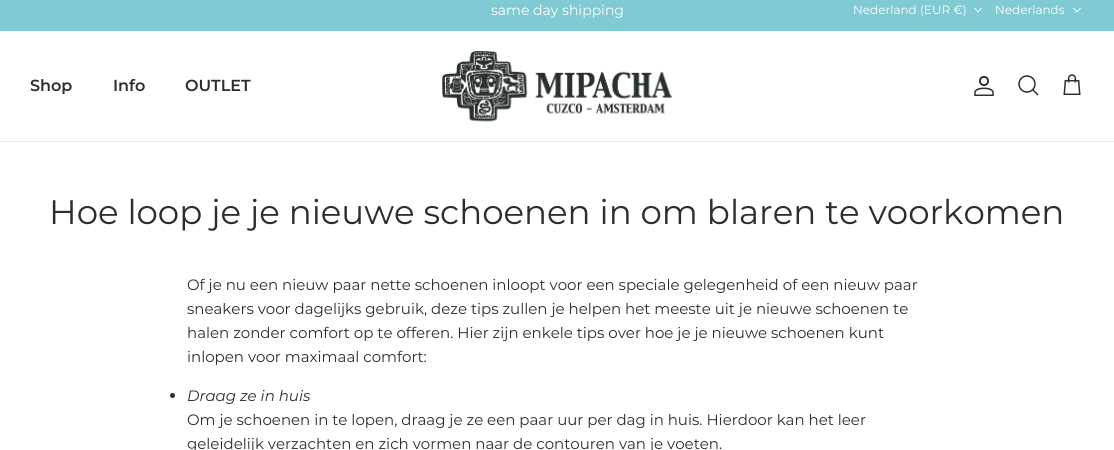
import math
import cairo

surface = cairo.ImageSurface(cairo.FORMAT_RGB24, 1114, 450)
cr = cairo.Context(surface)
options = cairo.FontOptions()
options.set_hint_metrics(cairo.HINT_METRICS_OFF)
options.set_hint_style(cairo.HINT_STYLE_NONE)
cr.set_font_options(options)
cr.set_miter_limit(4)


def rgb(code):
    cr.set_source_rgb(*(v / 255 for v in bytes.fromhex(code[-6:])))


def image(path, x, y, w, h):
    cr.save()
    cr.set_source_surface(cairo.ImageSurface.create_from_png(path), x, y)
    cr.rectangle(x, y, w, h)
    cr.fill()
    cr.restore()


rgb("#ffffff")
cr.paint()
rgb("#7fcad3")
cr.rectangle(0, 0, 1114, 31)
cr.fill()
cr.new_path()
cr.move_to(974.5, 8)
cr.line_to(978, 12)
cr.line_to(981.5, 8)
rgb("#ffffff")
cr.set_line_width(0.9)
cr.set_line_cap(cairo.LINE_CAP_ROUND)
cr.set_line_join(cairo.LINE_JOIN_ROUND)
cr.stroke()
cr.new_path()
cr.move_to(1073.5, 8)
cr.line_to(1077, 12)
cr.line_to(1080.5, 8)
cr.stroke()
rgb("#e9e9e9")
cr.rectangle(0, 141, 1114, 1)
cr.fill()
image("img/1.png", 442, 51, 230, 71)
image("img/2.png", 974, 76, 20, 20)
cr.arc(1027, 84, 8, 0, 2 * math.pi)
rgb("#2a2e2f")
cr.set_line_width(1.5)
cr.set_line_cap(cairo.LINE_CAP_BUTT)
cr.set_line_join(cairo.LINE_JOIN_MITER)
cr.stroke()
cr.new_path()
cr.move_to(1033, 90)
cr.line_to(1037.5, 94.5)
cr.set_line_cap(cairo.LINE_CAP_SQUARE)
cr.stroke()
image("img/3.png", 1063, 74, 18, 21)
cr.arc(172.5, 395.5, 2.5, 0, 2 * math.pi)
cr.fill()
cr.select_font_face("Montserrat")
cr.set_font_size(14)
rgb("#ffffff")
cr.move_to(491, 15)
cr.show_text("same day shipping")
cr.set_font_size(12)
cr.move_to(853, 14)
cr.show_text("Nederland (EUR €)")
cr.move_to(995, 14)
cr.show_text("Nederlands")
cr.select_font_face("Montserrat SemiBold")
cr.set_font_size(16)
rgb("#2a2e2f")
for x, y, s in [
    (30, 91, "Shop"),
    (113, 91, "Info"),
    (185, 91, "OUTLET"),
]:
    cr.move_to(x, y)
    cr.show_text(s)
cr.select_font_face("Montserrat")
cr.set_font_size(34)
cr.move_to(49, 224)
cr.show_text("Hoe loop je je nieuwe schoenen in om blaren te voorkomen")
cr.set_font_size(15)
for x, y, s in [
    (187, 290, "Of je nu een nieuw paar nette schoenen inloopt voor een speciale gelegenheid of een nieuw paar"),
    (187, 314, "sneakers voor dagelijks gebruik, deze tips zullen je helpen het meeste uit je nieuwe schoenen te"),
    (187, 338, "halen zonder comfort op te offeren. Hier zijn enkele tips over hoe je je nieuwe schoenen kunt"),
    (187, 362, "inlopen voor maximaal comfort:"),
]:
    cr.move_to(x, y)
    cr.show_text(s)
cr.select_font_face("Montserrat", cairo.FONT_SLANT_ITALIC)
cr.move_to(187, 401)
cr.show_text("Draag ze in huis")
cr.select_font_face("Montserrat")
cr.move_to(187, 425)
cr.show_text("Om je schoenen in te lopen, draag je ze een paar uur per dag in huis. Hierdoor kan het leer")
cr.move_to(187, 449)
cr.show_text("geleidelijk verzachten en zich vormen naar de contouren van je voeten.")
surface.write_to_png("page.png")
